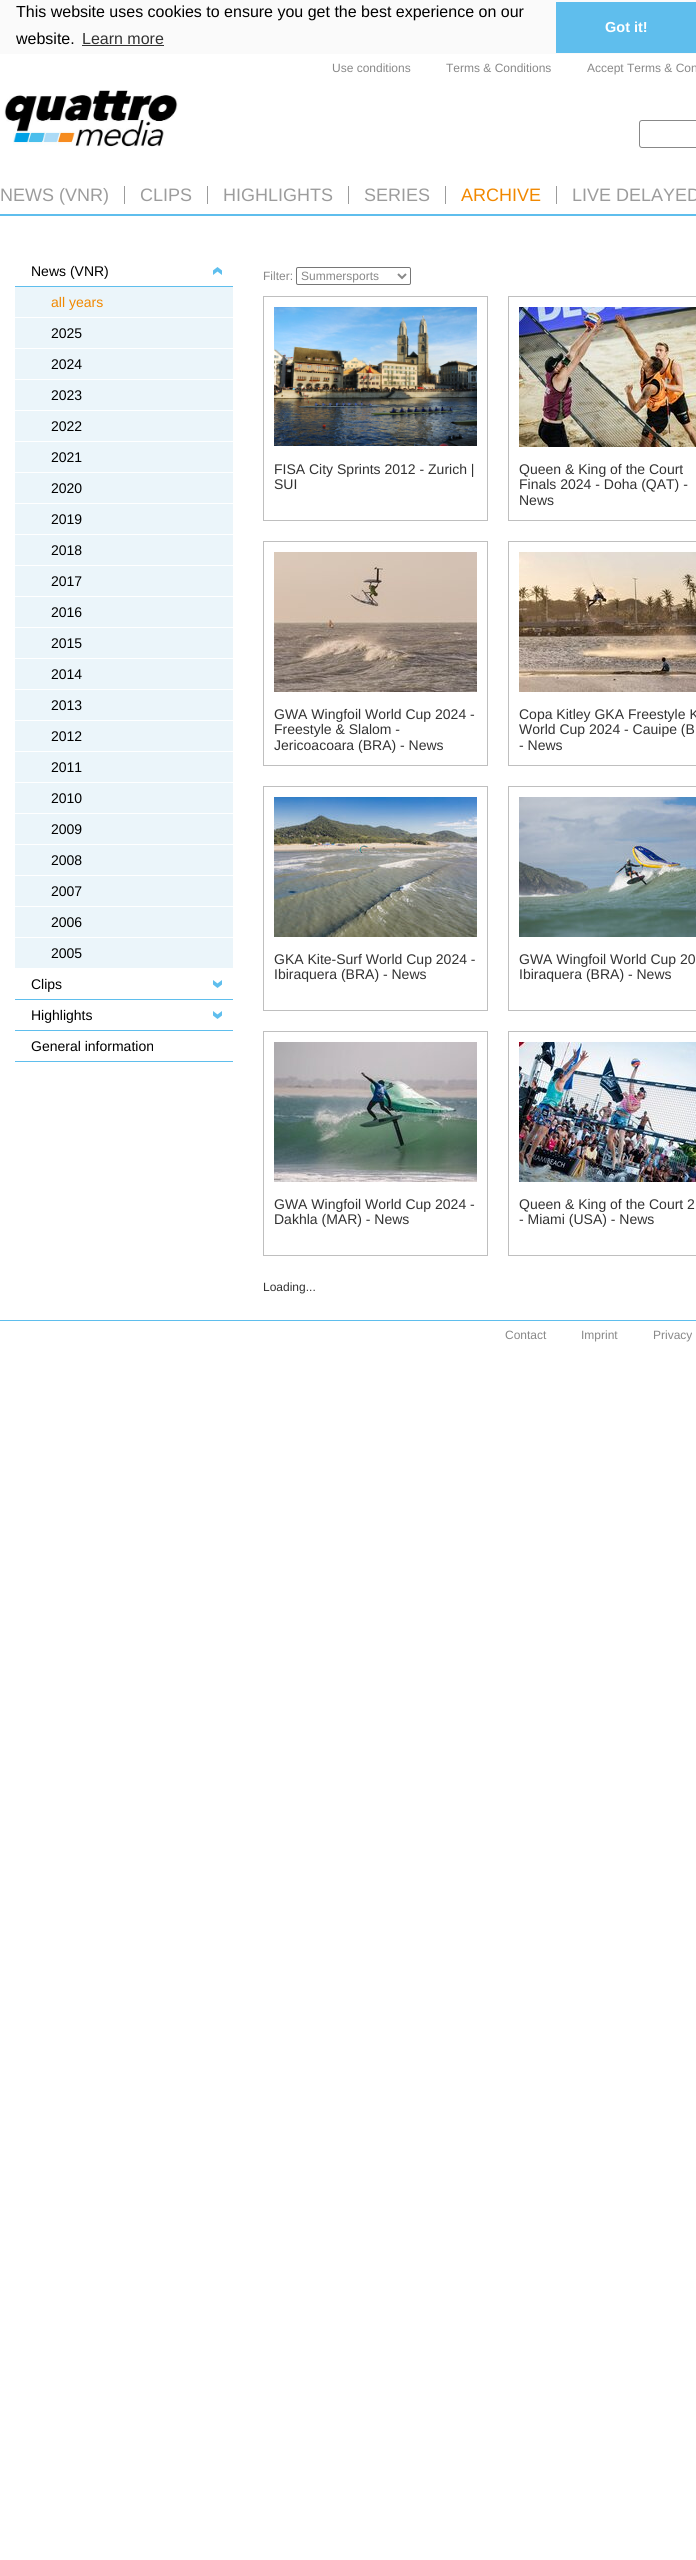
import math
import cairo

surface = cairo.ImageSurface(cairo.FORMAT_RGB24, 696, 2560)
cr = cairo.Context(surface)
options = cairo.FontOptions()
options.set_hint_metrics(cairo.HINT_METRICS_OFF)
options.set_hint_style(cairo.HINT_STYLE_NONE)
cr.set_font_options(options)
cr.set_miter_limit(4)


def rgb(code):
    cr.set_source_rgb(*(v / 255 for v in bytes.fromhex(code[-6:])))


def rrect(x, y, w, h, r):
    cr.new_sub_path()
    for i, (u, v) in enumerate([(x + w - r, y + h - r), (x + r, y + h - r), (x + r, y + r), (x + w - r, y + r)]):
        cr.arc(u, v, r, i * math.pi / 2, (i + 1) * math.pi / 2)
    cr.close_path()


def image(path, x, y, w, h):
    cr.save()
    cr.set_source_surface(cairo.ImageSurface.create_from_png(path), x, y)
    cr.rectangle(x, y, w, h)
    cr.fill()
    cr.restore()


rgb("#ffffff")
cr.paint()
for x, y, w, h, color in [
    (0, 0, 696, 54, "#fafafa"),
    (82, 45, 82, 1, "#323232"),
    (556, 2, 140, 51, "#5fbeed"),
    (0, 214, 696, 2, "#5fbeed"),
]:
    rgb(color)
    cr.rectangle(x, y, w, h)
    cr.fill()
image("img/1.png", 4, 90, 174, 57)
rrect(639.5, 120.5, 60, 27, 2.5)
rgb("#888888")
cr.set_line_width(1)
cr.stroke()
for x, y, w, h, color in [
    (124, 186, 1, 18, "#9c9c9c"),
    (207, 186, 1, 18, "#9c9c9c"),
    (348, 186, 1, 18, "#9c9c9c"),
    (445, 186, 1, 18, "#9c9c9c"),
    (556, 186, 1, 18, "#9c9c9c"),
]:
    rgb(color)
    cr.rectangle(x, y, w, h)
    cr.fill()
image("img/2.png", 213, 267, 9, 8)
for x, y, w, h, color in [
    (15, 286, 218, 1, "#5fbeed"),
    (15, 287, 218, 30, "#ebf5fa"),
    (15, 318, 218, 30, "#ebf5fa"),
    (15, 349, 218, 30, "#ebf5fa"),
    (15, 380, 218, 30, "#ebf5fa"),
    (15, 411, 218, 30, "#ebf5fa"),
    (15, 442, 218, 30, "#ebf5fa"),
    (15, 473, 218, 30, "#ebf5fa"),
    (15, 504, 218, 30, "#ebf5fa"),
    (15, 535, 218, 30, "#ebf5fa"),
    (15, 566, 218, 30, "#ebf5fa"),
    (15, 597, 218, 30, "#ebf5fa"),
    (15, 628, 218, 30, "#ebf5fa"),
    (15, 659, 218, 30, "#ebf5fa"),
    (15, 690, 218, 30, "#ebf5fa"),
    (15, 721, 218, 30, "#ebf5fa"),
    (15, 752, 218, 30, "#ebf5fa"),
    (15, 783, 218, 30, "#ebf5fa"),
    (15, 814, 218, 30, "#ebf5fa"),
    (15, 845, 218, 30, "#ebf5fa"),
    (15, 876, 218, 30, "#ebf5fa"),
    (15, 907, 218, 30, "#ebf5fa"),
    (15, 938, 218, 30, "#ebf5fa"),
    (15, 999, 218, 1, "#5fbeed"),
]:
    rgb(color)
    cr.rectangle(x, y, w, h)
    cr.fill()
image("img/3.png", 213, 980, 9, 8)
cr.rectangle(15, 1030, 218, 1)
cr.fill()
image("img/3.png", 213, 1011, 9, 8)
cr.rectangle(15, 1061, 218, 1)
cr.fill()
rrect(296.5, 267.5, 114, 17, 1.5)
rgb("#767676")
cr.stroke()
cr.new_path()
cr.move_to(398, 274)
cr.line_to(402, 278)
cr.line_to(406, 274)
rgb("#888888")
cr.set_line_width(2)
cr.stroke()
cr.rectangle(263.5, 296.5, 224, 224)
rgb("#bfbfbf")
cr.set_line_width(1)
cr.stroke()
image("img/4.png", 274, 307, 203, 139)
cr.rectangle(508.5, 296.5, 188, 224)
cr.stroke()
image("img/5.png", 519, 307, 177, 140)
cr.rectangle(263.5, 541.5, 224, 224)
cr.stroke()
image("img/6.png", 274, 552, 203, 140)
cr.rectangle(508.5, 541.5, 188, 224)
cr.stroke()
image("img/7.png", 519, 552, 177, 140)
cr.rectangle(263.5, 786.5, 224, 224)
cr.stroke()
image("img/8.png", 274, 797, 203, 140)
cr.rectangle(508.5, 786.5, 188, 224)
cr.stroke()
image("img/9.png", 519, 797, 177, 140)
cr.rectangle(263.5, 1031.5, 224, 224)
cr.stroke()
image("img/10.png", 274, 1042, 203, 140)
cr.rectangle(508.5, 1031.5, 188, 224)
cr.stroke()
image("img/11.png", 519, 1042, 177, 140)
rgb("#5fbeed")
cr.rectangle(0, 1320, 696, 1)
cr.fill()
cr.select_font_face("Liberation Sans")
cr.set_font_size(16)
rgb("#000000")
cr.move_to(16, 17)
cr.show_text("This website uses cookies to ensure you get the best experience on our")
cr.move_to(16, 44)
cr.show_text("website.")
rgb("#323232")
cr.move_to(82, 44)
cr.show_text("Learn more")
cr.select_font_face("Liberation Sans", cairo.FONT_SLANT_NORMAL, cairo.FONT_WEIGHT_BOLD)
cr.set_font_size(14.5)
rgb("#ffffff")
cr.move_to(605, 32)
cr.show_text("Got it!")
cr.select_font_face("Liberation Sans")
cr.set_font_size(12)
rgb("#888888")
for x, y, s in [
    (332, 72, "Use conditions"),
    (446, 72, "Terms & Conditions"),
    (587, 72, "Accept Terms & Con"),
]:
    cr.move_to(x, y)
    cr.show_text(s)
cr.set_font_size(18)
rgb("#9c9c9c")
for x, y, s in [
    (0, 201, "NEWS (VNR)"),
    (140, 201, "CLIPS"),
    (223, 201, "HIGHLIGHTS"),
    (364, 201, "SERIES"),
]:
    cr.move_to(x, y)
    cr.show_text(s)
rgb("#f18800")
cr.move_to(461, 201)
cr.show_text("ARCHIVE")
rgb("#9c9c9c")
cr.move_to(572, 201)
cr.show_text("LIVE DELAYED")
cr.set_font_size(14)
rgb("#000000")
cr.move_to(31, 276)
cr.show_text("News (VNR)")
rgb("#f18800")
cr.move_to(51, 307)
cr.show_text("all years")
rgb("#000000")
for x, y, s in [
    (51, 338, "2025"),
    (51, 369, "2024"),
    (51, 400, "2023"),
    (51, 431, "2022"),
    (51, 462, "2021"),
    (51, 493, "2020"),
    (51, 524, "2019"),
    (51, 555, "2018"),
    (51, 586, "2017"),
    (51, 617, "2016"),
    (51, 648, "2015"),
    (51, 679, "2014"),
    (51, 710, "2013"),
    (51, 741, "2012"),
    (51, 772, "2011"),
    (51, 803, "2010"),
    (51, 834, "2009"),
    (51, 865, "2008"),
    (51, 896, "2007"),
    (51, 927, "2006"),
    (51, 958, "2005"),
    (31, 989, "Clips"),
    (31, 1020, "Highlights"),
    (31, 1051, "General information"),
]:
    cr.move_to(x, y)
    cr.show_text(s)
cr.set_font_size(12)
rgb("#888888")
cr.move_to(263, 280)
cr.show_text("Filter:")
cr.move_to(301, 280)
cr.show_text("Summersports")
cr.set_font_size(14)
rgb("#323232")
for x, y, s in [
    (274, 474, "FISA City Sprints 2012 - Zurich |"),
    (274, 489, "SUI"),
    (519, 474, "Queen & King of the Court"),
    (519, 489, "Finals 2024 - Doha (QAT) -"),
    (519, 505, "News"),
    (274, 719, "GWA Wingfoil World Cup 2024 -"),
    (274, 734, "Freestyle & Slalom -"),
    (274, 750, "Jericoacoara (BRA) - News"),
    (519, 719, "Copa Kitley GKA Freestyle K"),
    (519, 734, "World Cup 2024 - Cauipe (B"),
    (519, 750, "- News"),
    (274, 964, "GKA Kite-Surf World Cup 2024 -"),
    (274, 979, "Ibiraquera (BRA) - News"),
    (519, 964, "GWA Wingfoil World Cup 20"),
    (519, 979, "Ibiraquera (BRA) - News"),
    (274, 1209, "GWA Wingfoil World Cup 2024 -"),
    (274, 1224, "Dakhla (MAR) - News"),
    (519, 1209, "Queen & King of the Court 2"),
    (519, 1224, "- Miami (USA) - News"),
]:
    cr.move_to(x, y)
    cr.show_text(s)
cr.set_font_size(12)
cr.move_to(263, 1291)
cr.show_text("Loading...")
rgb("#888888")
for x, y, s in [
    (505, 1339, "Contact"),
    (581, 1339, "Imprint"),
    (653, 1339, "Privacy"),
]:
    cr.move_to(x, y)
    cr.show_text(s)
surface.write_to_png("page.png")
